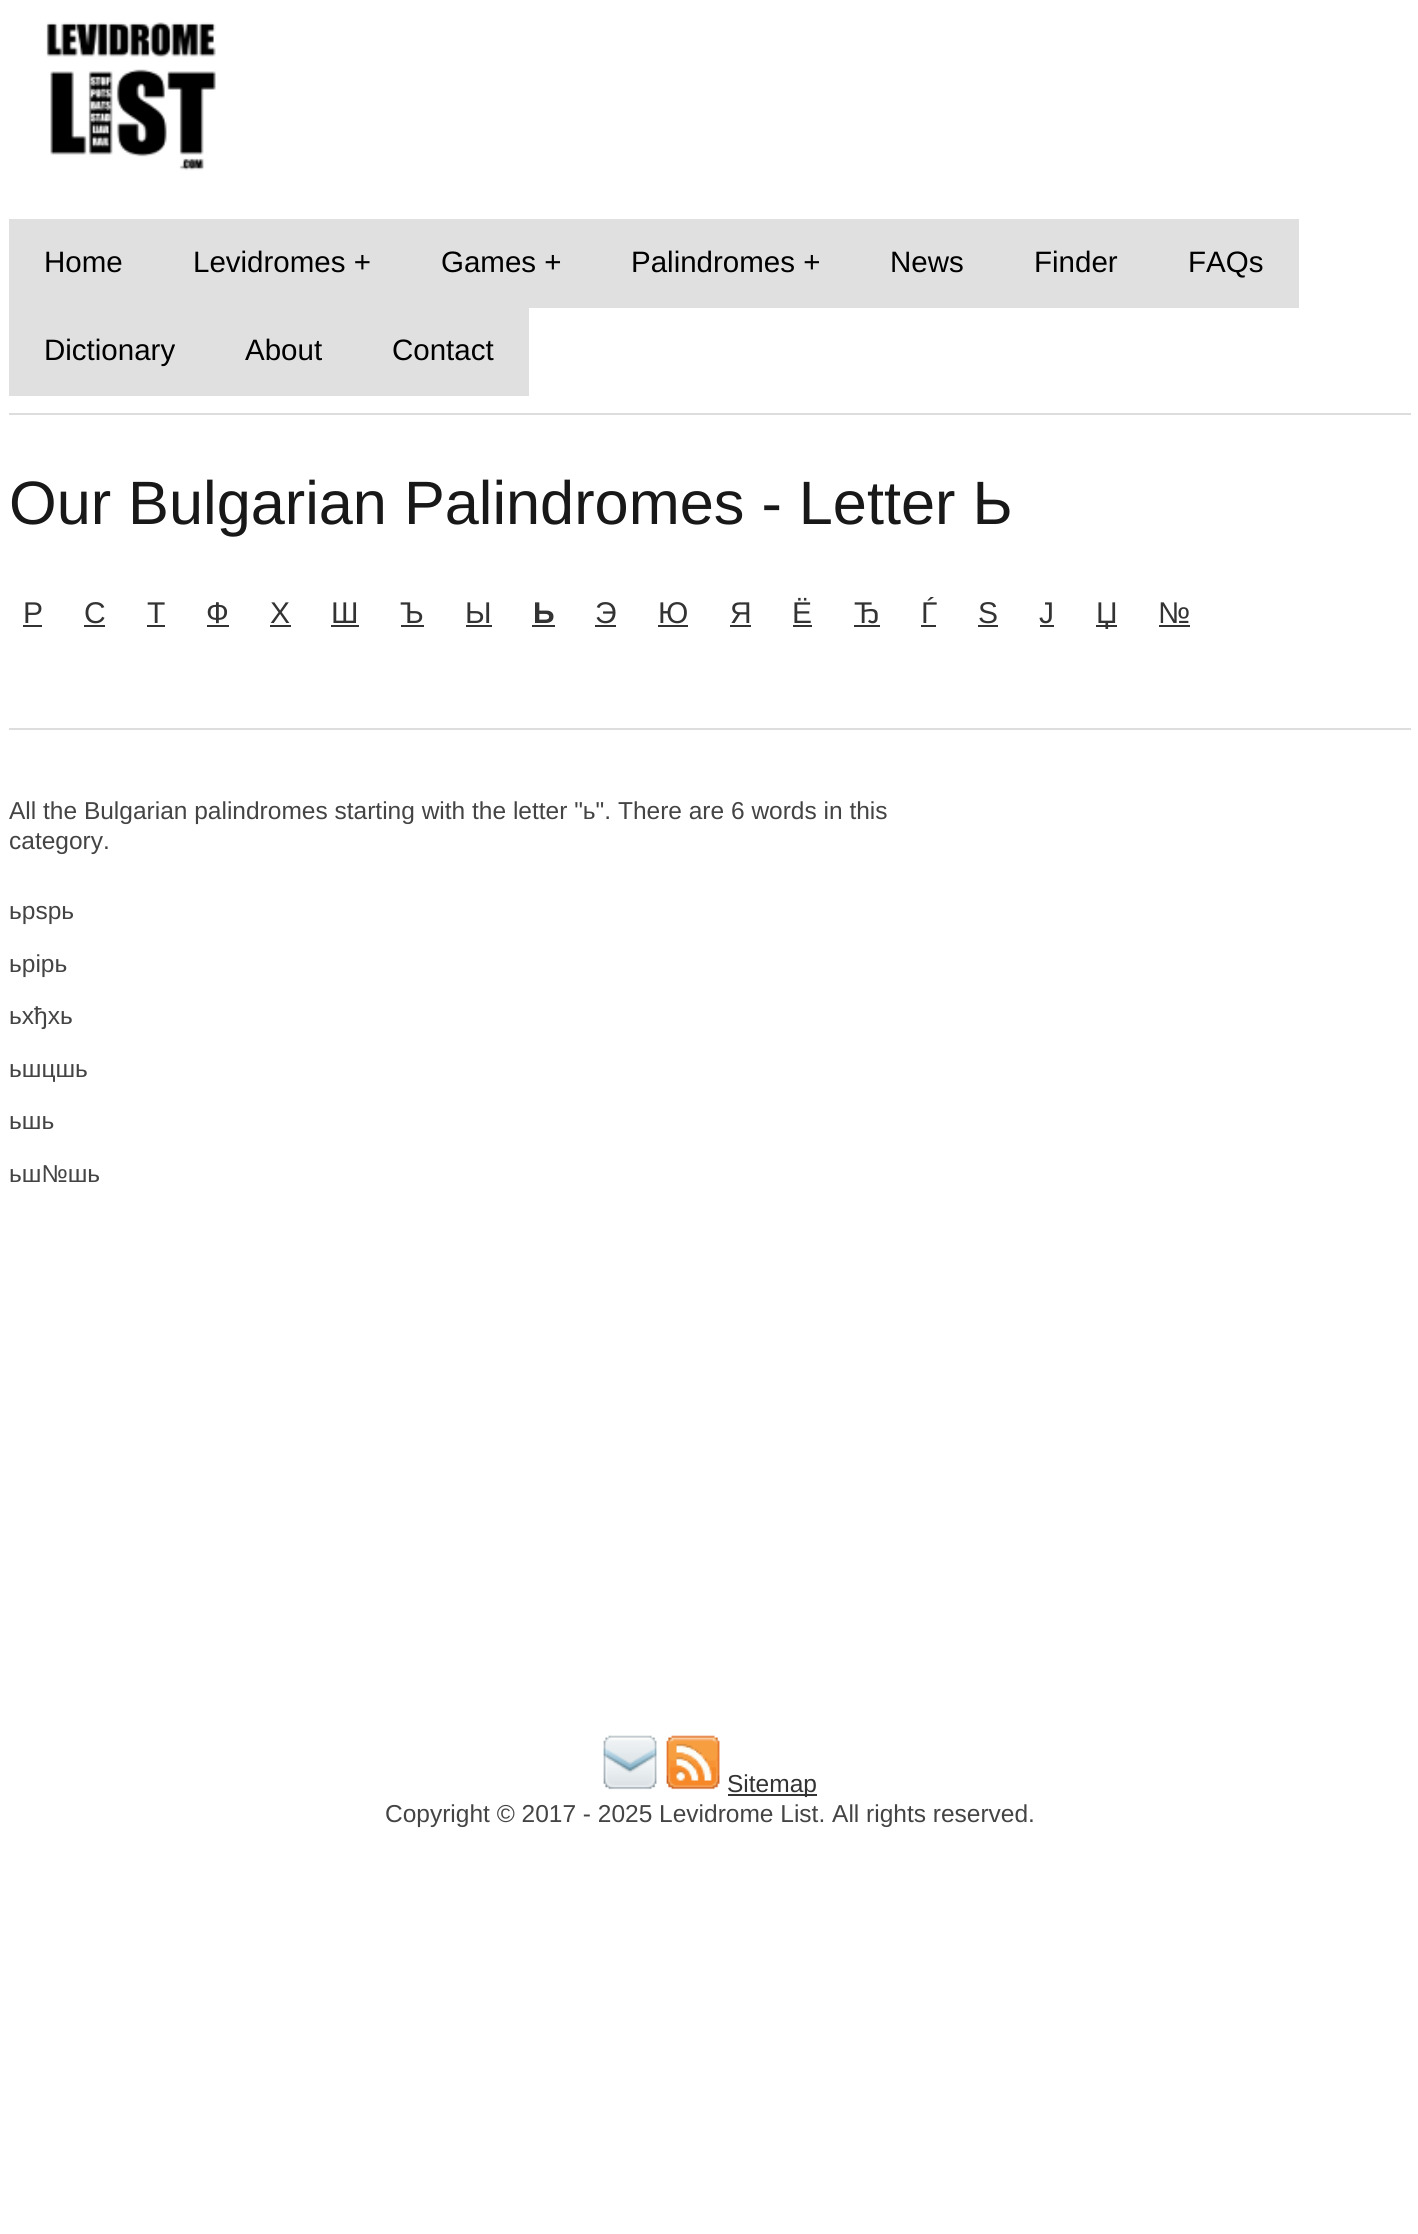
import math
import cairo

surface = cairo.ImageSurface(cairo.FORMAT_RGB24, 1418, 2234)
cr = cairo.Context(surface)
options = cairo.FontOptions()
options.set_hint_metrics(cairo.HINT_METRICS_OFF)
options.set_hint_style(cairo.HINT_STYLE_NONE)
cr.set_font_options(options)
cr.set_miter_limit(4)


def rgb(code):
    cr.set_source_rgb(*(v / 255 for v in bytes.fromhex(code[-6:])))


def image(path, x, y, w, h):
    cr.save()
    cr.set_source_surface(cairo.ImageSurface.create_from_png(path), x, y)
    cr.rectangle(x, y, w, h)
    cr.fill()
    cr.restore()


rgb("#ffffff")
cr.paint()
image("img/1.png", 46, 22, 170, 149)
for x, y, w, h, color in [
    (9, 219, 1290, 89, "#e0e0e0"),
    (9, 308, 520, 88, "#e0e0e0"),
    (9, 413, 1402, 2, "#dddddd"),
    (23, 625, 19, 2, "#333333"),
    (84, 625, 21, 2, "#333333"),
    (147, 625, 18, 2, "#333333"),
    (207, 625, 22, 2, "#333333"),
    (270, 625, 21, 2, "#333333"),
    (331, 625, 28, 2, "#333333"),
    (401, 625, 23, 2, "#333333"),
    (466, 625, 26, 2, "#333333"),
    (532, 625, 23, 2, "#333333"),
    (595, 625, 21, 2, "#333333"),
    (658, 625, 30, 2, "#333333"),
    (730, 625, 21, 2, "#333333"),
    (793, 625, 19, 2, "#333333"),
    (854, 625, 26, 2, "#333333"),
    (921, 625, 15, 2, "#333333"),
    (978, 625, 20, 2, "#333333"),
    (1040, 625, 14, 2, "#333333"),
    (1096, 625, 21, 2, "#333333"),
    (1159, 625, 31, 2, "#333333"),
    (9, 728, 1402, 2, "#dddddd"),
]:
    rgb(color)
    cr.rectangle(x, y, w, h)
    cr.fill()
image("img/2.png", 603, 1735, 54, 55)
image("img/3.png", 666, 1735, 54, 55)
rgb("#333333")
cr.rectangle(728, 1794, 89, 2)
cr.fill()
cr.select_font_face("Liberation Sans")
cr.set_font_size(29.5)
rgb("#000000")
for x, y, s in [
    (44, 272, "Home"),
    (193, 272, "Levidromes +"),
    (441, 272, "Games +"),
    (631, 272, "Palindromes +"),
    (890, 272, "News"),
    (1034, 272, "Finder"),
    (1188, 272, "FAQs"),
    (44, 360, "Dictionary"),
    (245, 360, "About"),
    (392, 360, "Contact"),
]:
    cr.move_to(x, y)
    cr.show_text(s)
cr.set_font_size(61.25)
rgb("#181818")
cr.move_to(9, 524)
cr.show_text("Our Bulgarian Palindromes - Letter Ь")
cr.set_font_size(30)
rgb("#333333")
for x, y, s in [
    (23, 623, "Р"),
    (84, 623, "С"),
    (147, 623, "Т"),
    (206, 623, "Ф"),
    (270, 623, "Х"),
    (331, 623, "Ш"),
    (400, 623, "Ъ"),
    (465, 623, "Ы"),
]:
    cr.move_to(x, y)
    cr.show_text(s)
cr.select_font_face("Liberation Sans", cairo.FONT_SLANT_NORMAL, cairo.FONT_WEIGHT_BOLD)
cr.move_to(533, 623)
cr.show_text("Ь")
cr.select_font_face("Liberation Sans")
for x, y, s in [
    (595, 623, "Э"),
    (658, 623, "Ю"),
    (730, 623, "Я"),
    (792, 623, "Ё"),
    (854, 623, "Ђ"),
    (921, 623, "Ѓ"),
    (978, 623, "Ѕ"),
    (1039, 623, "Ј"),
    (1096, 623, "Џ"),
    (1158, 623, "№"),
]:
    cr.move_to(x, y)
    cr.show_text(s)
cr.set_font_size(24.5)
rgb("#444444")
for x, y, s in [
    (9, 819, "All the Bulgarian palindromes starting with the letter \"ь\". There are 6 words in this"),
    (9, 849, "category."),
    (9, 919, "ьрѕрь"),
    (9, 972, "ьрірь"),
    (9, 1024, "ьхђхь"),
    (9, 1077, "ьшцшь"),
    (9, 1129, "ьшь"),
    (9, 1182, "ьш№шь"),
]:
    cr.move_to(x, y)
    cr.show_text(s)
rgb("#333333")
cr.move_to(727, 1792)
cr.show_text("Sitemap")
rgb("#444444")
cr.move_to(385, 1822)
cr.show_text("Copyright © 2017 - 2025 Levidrome List. All rights reserved.")
surface.write_to_png("page.png")
